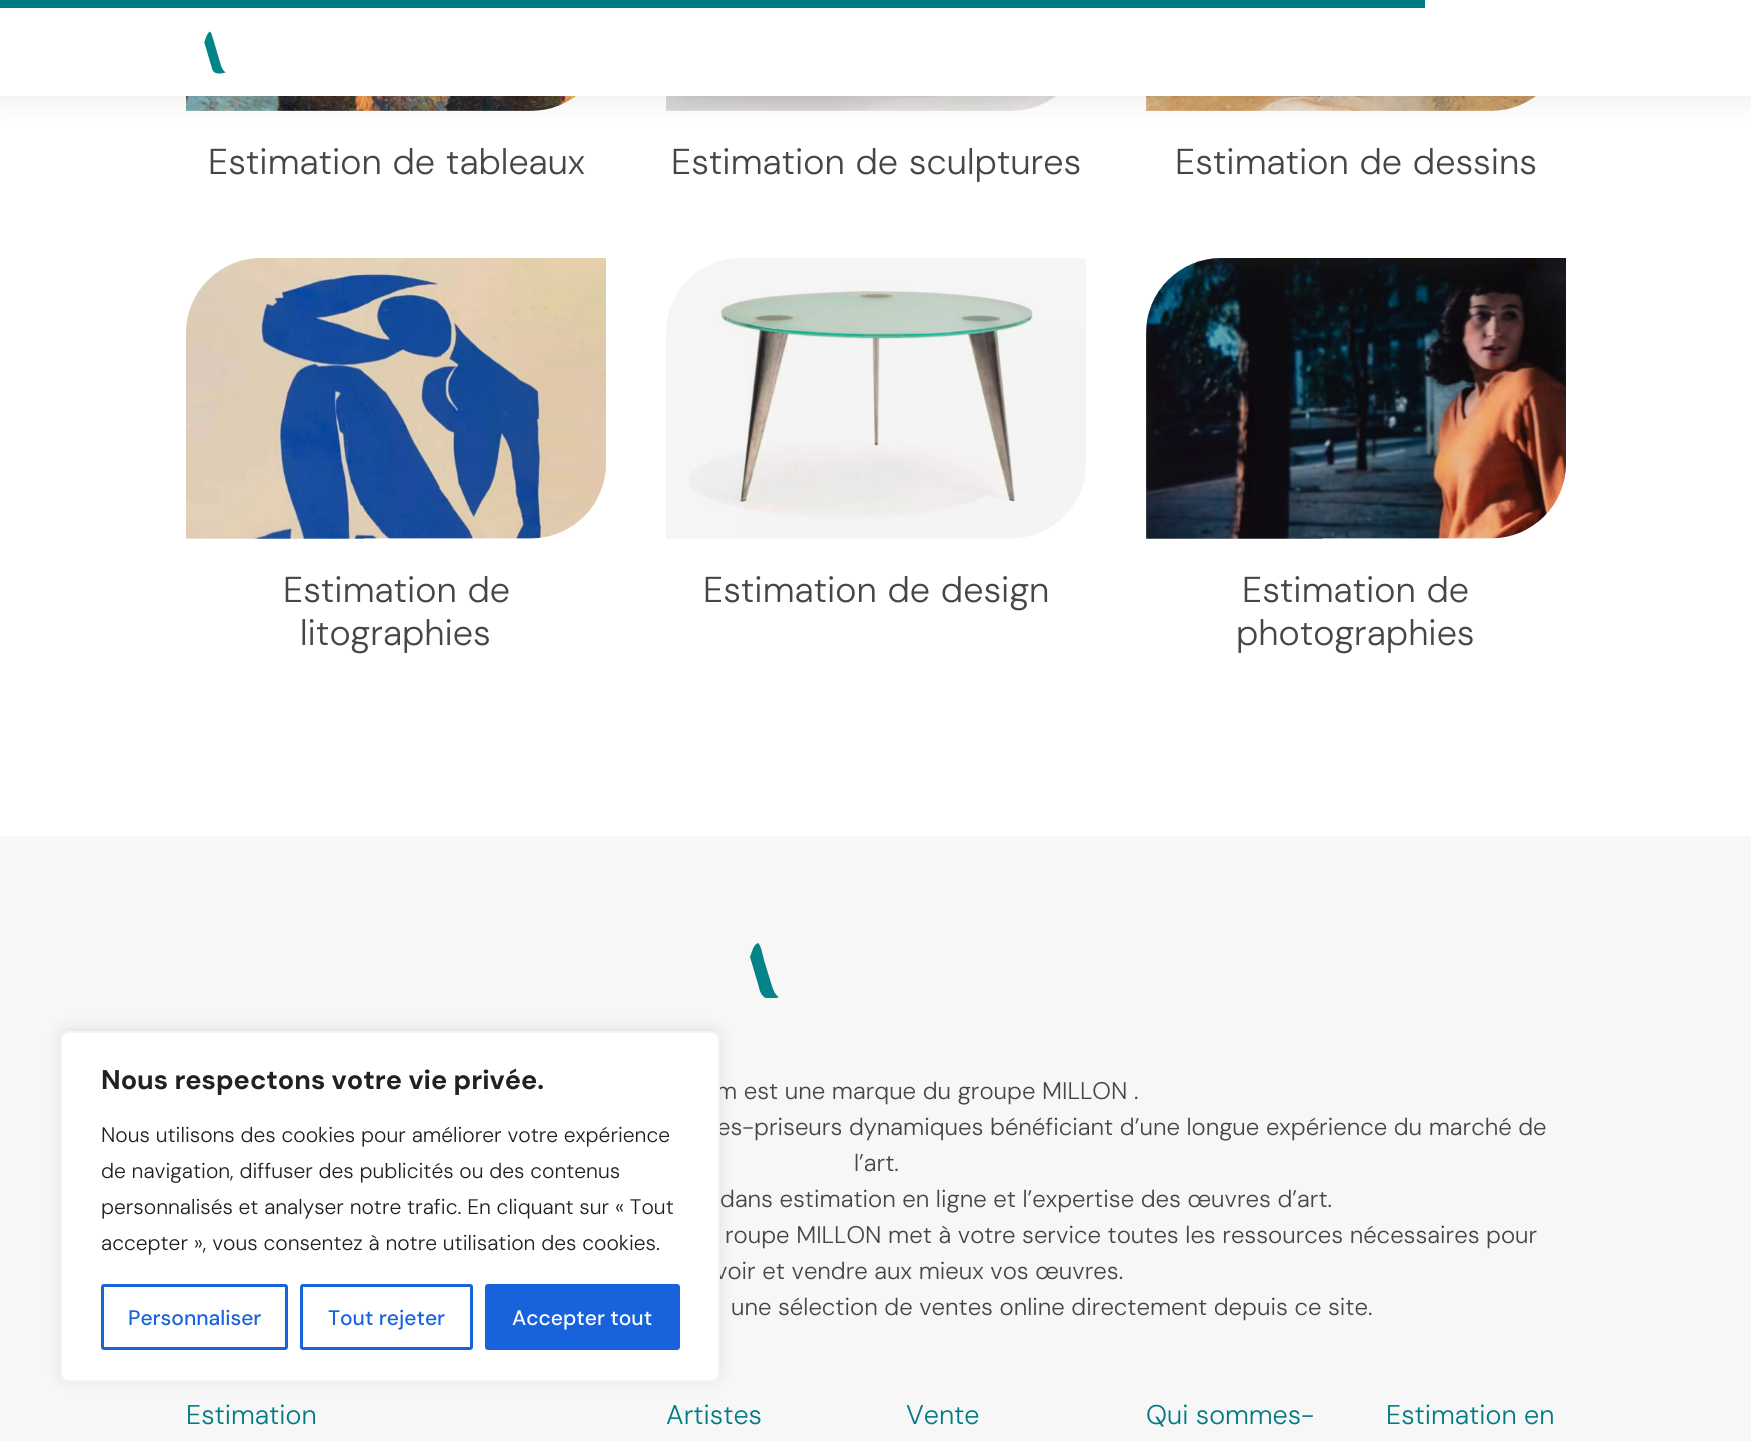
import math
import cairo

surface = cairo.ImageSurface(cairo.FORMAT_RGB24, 1751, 1441)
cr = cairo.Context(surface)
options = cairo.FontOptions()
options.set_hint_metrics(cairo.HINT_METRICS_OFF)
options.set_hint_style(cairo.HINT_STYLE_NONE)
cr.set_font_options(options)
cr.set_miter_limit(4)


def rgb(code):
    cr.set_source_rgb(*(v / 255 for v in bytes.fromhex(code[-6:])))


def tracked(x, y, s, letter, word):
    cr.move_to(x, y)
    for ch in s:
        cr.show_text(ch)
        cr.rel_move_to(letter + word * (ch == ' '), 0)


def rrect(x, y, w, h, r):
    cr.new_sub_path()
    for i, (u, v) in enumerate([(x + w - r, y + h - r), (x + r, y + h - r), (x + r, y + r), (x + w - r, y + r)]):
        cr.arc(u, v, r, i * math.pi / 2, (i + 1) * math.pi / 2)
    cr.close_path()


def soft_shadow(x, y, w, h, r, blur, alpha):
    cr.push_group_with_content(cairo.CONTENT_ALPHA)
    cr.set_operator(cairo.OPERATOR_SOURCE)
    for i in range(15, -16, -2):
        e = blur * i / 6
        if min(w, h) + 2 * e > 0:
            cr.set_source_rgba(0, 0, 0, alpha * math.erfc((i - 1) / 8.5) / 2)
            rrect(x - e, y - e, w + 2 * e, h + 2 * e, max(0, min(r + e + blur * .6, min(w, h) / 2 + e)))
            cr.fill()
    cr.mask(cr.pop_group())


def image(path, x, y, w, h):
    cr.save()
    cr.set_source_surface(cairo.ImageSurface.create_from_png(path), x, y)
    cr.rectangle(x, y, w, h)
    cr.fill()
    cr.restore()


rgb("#ffffff")
cr.paint()
image("img/2.png", 186, 96, 390, 15)
image("img/3.png", 666, 96, 390, 15)
image("img/4.png", 1146, 96, 390, 15)
rgb("#000000")
soft_shadow(0, 0, 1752, 96, 0, 15, 0.1)
rgb("#ffffff")
cr.rectangle(0, 0, 1751, 96)
cr.fill()
image("img/1.png", 204, 31, 22, 43)
rgb("#007b83")
cr.rectangle(0, 0, 1425, 8)
cr.fill()
image("img/5.png", 186, 258, 420, 281)
image("img/6.png", 666, 258, 420, 281)
image("img/7.png", 1146, 258, 420, 281)
rgb("#f7f7f7")
cr.rectangle(0, 836, 1751, 605)
cr.fill()
cr.save()
cr.rectangle(726, 941, 300, 57)
cr.clip()
rgb("#048389")
cr.new_path()
cr.move_to(772, 986)
cr.line_to(764, 960)
cr.curve_to(763, 956, 761, 945, 758, 943)
cr.curve_to(753, 945, 752, 952, 750, 957)
cr.line_to(758, 984)
cr.curve_to(759, 988, 760, 993, 763, 996)
cr.curve_to(766, 1000, 775, 999, 779, 997)
cr.curve_to(779, 997, 775, 996, 772, 986)
cr.close_path()
cr.fill()
cr.restore()
rgb("#acabab")
soft_shadow(60, 1029, 660, 351, 9, 7.5, 0.3)
cr.select_font_face("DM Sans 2 Light")
cr.set_font_size(36)
rgb("#464646")
for x, y, s in [
    (208, 174, "Estimation de tableaux"),
    (671, 174, "Estimation de sculptures"),
    (1175, 174, "Estimation de dessins"),
    (283, 602, "Estimation de"),
]:
    tracked(x, y, s, 0, 1)
cr.move_to(300, 645)
cr.show_text("litographies")
tracked(703, 602, "Estimation de design", 0, 1)
tracked(1242, 602, "Estimation de", 0, 1)
cr.move_to(1236, 645)
cr.show_text("photographies")
cr.select_font_face("DM Sans Light")
cr.set_font_size(24)
for x, y, s in [
    (716, 1099, "m est une marque du groupe MILLON ."),
    (717, 1135, "es-priseurs dynamiques bénéficiant d’une longue expérience du marché de"),
    (854, 1171, "l’art."),
    (720, 1207, "dans estimation en ligne et l’expertise des œuvres d’art."),
    (725, 1243, "roupe MILLON met à votre service toutes les ressources nécessaires pour"),
    (715, 1279, "voir et vendre aux mieux vos œuvres."),
    (731, 1315, "une sélection de ventes online directement depuis ce site."),
]:
    cr.move_to(x, y)
    cr.show_text(s)
cr.select_font_face("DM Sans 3 Light")
cr.set_font_size(27)
rgb("#007b83")
for x, y, s in [
    (186, 1424, "Estimation"),
    (666, 1424, "Artistes"),
    (906, 1424, "Vente"),
    (1146, 1424, "Qui sommes-"),
    (1386, 1424, "Estimation en"),
]:
    cr.move_to(x, y)
    cr.show_text(s)
rgb("#ffffff")
rrect(61, 1032, 658, 349, 8)
cr.fill_preserve()
rgb("#f4f4f4")
cr.stroke()
cr.select_font_face("DM Sans", cairo.FONT_SLANT_NORMAL, cairo.FONT_WEIGHT_BOLD)
rgb("#212121")
cr.move_to(101, 1089)
cr.show_text("Nous respectons votre vie privée.")
cr.select_font_face("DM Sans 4 Light")
cr.set_font_size(21)
for x, y, s in [
    (101, 1142, "Nous utilisons des cookies pour améliorer votre expérience"),
    (101, 1178, "de navigation, diffuser des publicités ou des contenus"),
    (101, 1214, "personnalisés et analyser notre trafic. En cliquant sur « Tout"),
    (101, 1250, "accepter », vous consentez à notre utilisation des cookies."),
]:
    cr.move_to(x, y)
    cr.show_text(s)
rrect(102.5, 1285.5, 184, 63, 1.5)
rgb("#1863dc")
cr.set_line_width(3)
cr.stroke()
cr.select_font_face("DM Sans Medium")
cr.move_to(128, 1325)
cr.show_text("Personnaliser")
rrect(301.5, 1285.5, 170, 63, 1.5)
cr.stroke()
cr.move_to(328, 1325)
cr.show_text("Tout rejeter")
rrect(486.5, 1285.5, 192, 63, 1.5)
cr.fill_preserve()
cr.stroke()
rgb("#ffffff")
cr.move_to(512, 1325)
cr.show_text("Accepter tout")
surface.write_to_png("page.png")
